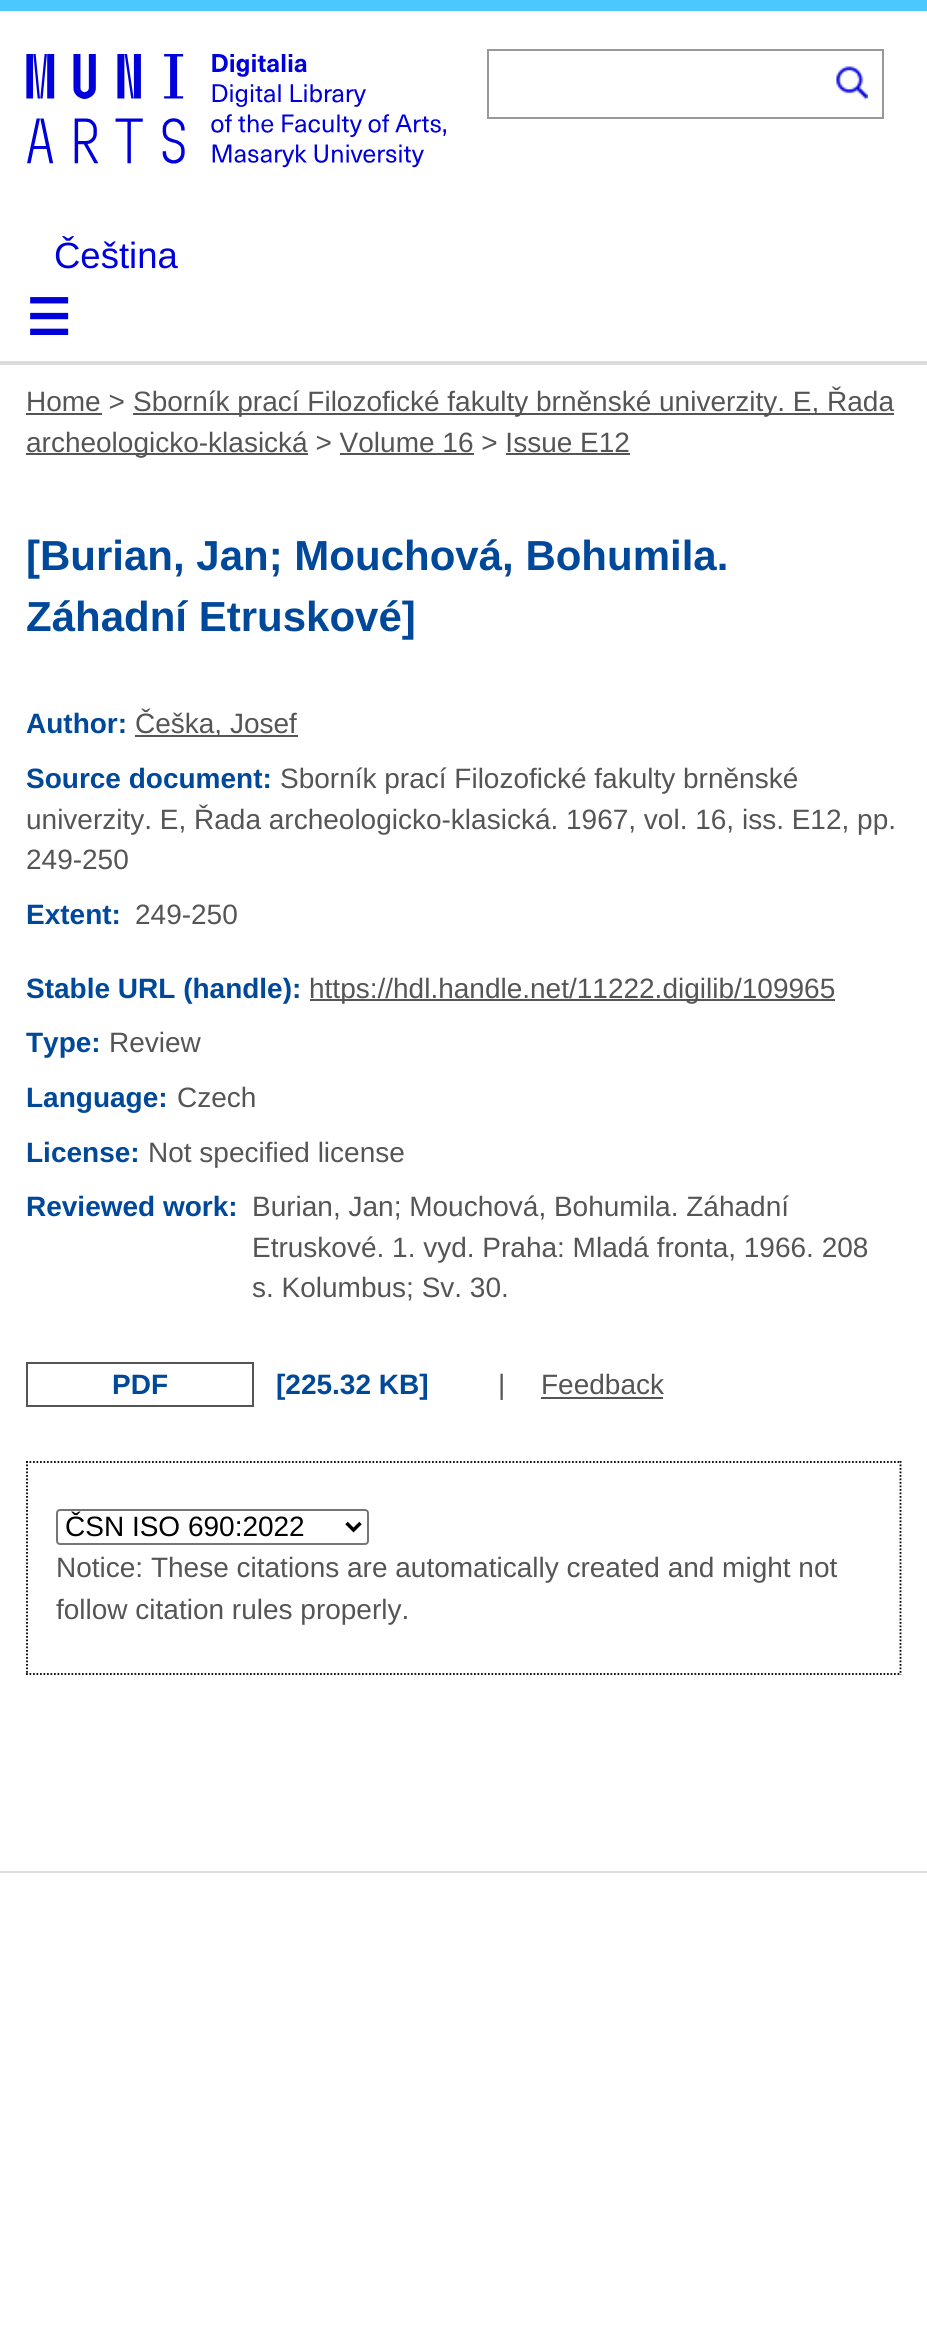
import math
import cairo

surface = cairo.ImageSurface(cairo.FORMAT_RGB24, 927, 2343)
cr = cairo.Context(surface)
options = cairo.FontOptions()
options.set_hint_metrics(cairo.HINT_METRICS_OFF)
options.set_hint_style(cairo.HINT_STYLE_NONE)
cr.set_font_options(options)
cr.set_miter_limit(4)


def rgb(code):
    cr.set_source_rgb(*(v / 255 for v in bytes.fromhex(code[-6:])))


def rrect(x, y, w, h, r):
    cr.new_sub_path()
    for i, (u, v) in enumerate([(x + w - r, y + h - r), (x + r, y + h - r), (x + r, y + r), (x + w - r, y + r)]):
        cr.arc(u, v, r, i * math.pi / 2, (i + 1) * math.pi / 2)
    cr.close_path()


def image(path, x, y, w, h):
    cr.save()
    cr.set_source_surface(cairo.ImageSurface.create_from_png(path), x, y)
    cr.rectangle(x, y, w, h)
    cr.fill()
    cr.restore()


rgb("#ffffff")
cr.paint()
rgb("#4bc8ff")
cr.rectangle(0, 0, 927, 11)
cr.fill()
rgb("#dcdcdc")
cr.rectangle(0, 361, 927, 4)
cr.fill()
image("img/1.png", 26, 54, 420, 114)
for x, y, w, h, color in [
    (487, 49, 397, 2, "#999999"),
    (487, 117, 336, 2, "#999999"),
    (487, 49, 2, 70, "#999999"),
]:
    rgb(color)
    cr.rectangle(x, y, w, h)
    cr.fill()
image("img/2.png", 836, 66, 32, 34)
for x, y, w, h, color in [
    (882, 49, 2, 70, "#999999"),
    (823, 117, 61, 2, "#999999"),
    (0, 1871, 927, 2, "#dddddd"),
    (26, 413, 76, 2, "#555555"),
    (133, 413, 761, 2, "#555555"),
    (26, 453, 282, 2, "#555555"),
    (340, 453, 134, 2, "#555555"),
    (506, 453, 124, 2, "#555555"),
    (135, 735, 163, 2, "#555555"),
    (310, 999, 525, 2, "#555555"),
]:
    rgb(color)
    cr.rectangle(x, y, w, h)
    cr.fill()
cr.rectangle(27, 1363, 226, 43)
cr.stroke()
cr.rectangle(541, 1397, 122, 2)
cr.fill()
cr.new_path()
cr.move_to(26, 1462)
cr.line_to(901, 1462)
rgb("#000000")
cr.set_line_width(1.8)
cr.set_dash([1.75, 1.75])
cr.stroke()
cr.new_path()
cr.move_to(900.5, 1461)
cr.line_to(900.5, 1675)
cr.stroke()
cr.new_path()
cr.move_to(26, 1674)
cr.line_to(901, 1674)
cr.stroke()
cr.new_path()
cr.move_to(27, 1461)
cr.line_to(27, 1675)
cr.stroke()
rrect(57, 1510, 311, 34, 3)
rgb("#767676")
cr.set_line_width(2)
cr.set_dash([])
cr.stroke()
cr.new_path()
cr.move_to(346.5, 1523)
cr.line_to(353.5, 1530)
cr.line_to(360.5, 1523)
rgb("#000000")
cr.set_line_width(3.5)
cr.stroke()
cr.select_font_face("Liberation Sans")
cr.set_font_size(36.5)
rgb("#0000dc")
cr.move_to(54, 268)
cr.show_text("Čeština")
cr.select_font_face("DejaVu Sans", cairo.FONT_SLANT_NORMAL, cairo.FONT_WEIGHT_BOLD)
cr.set_font_size(50)
cr.move_to(26, 335)
cr.show_text("☰")
cr.select_font_face("Liberation Sans")
cr.set_font_size(28)
rgb("#555555")
for x, y, s in [
    (26, 411, "Home >"),
    (133, 411, "Sborník prací Filozofické fakulty brněnské univerzity. E, Řada"),
    (26, 452, "archeologicko-klasická > Volume 16 > Issue E12"),
]:
    cr.move_to(x, y)
    cr.show_text(s)
cr.select_font_face("Liberation Sans", cairo.FONT_SLANT_NORMAL, cairo.FONT_WEIGHT_BOLD)
cr.set_font_size(42)
rgb("#004899")
cr.move_to(26, 570)
cr.show_text("[Burian, Jan; Mouchová, Bohumila.")
cr.move_to(26, 631)
cr.show_text("Záhadní Etruskové]")
cr.set_font_size(28)
cr.move_to(26, 733)
cr.show_text("Author:")
cr.select_font_face("Liberation Sans")
rgb("#555555")
cr.move_to(135, 733)
cr.show_text("Češka, Josef")
cr.select_font_face("Liberation Sans", cairo.FONT_SLANT_NORMAL, cairo.FONT_WEIGHT_BOLD)
rgb("#004899")
cr.move_to(26, 788)
cr.show_text("Source document:")
cr.select_font_face("Liberation Sans")
rgb("#555555")
for x, y, s in [
    (280, 788, "Sborník prací Filozofické fakulty brněnské"),
    (26, 829, "univerzity. E, Řada archeologicko-klasická. 1967, vol. 16, iss. E12, pp."),
    (26, 869, "249-250"),
]:
    cr.move_to(x, y)
    cr.show_text(s)
cr.select_font_face("Liberation Sans", cairo.FONT_SLANT_NORMAL, cairo.FONT_WEIGHT_BOLD)
rgb("#004899")
cr.move_to(26, 924)
cr.show_text("Extent:")
cr.select_font_face("Liberation Sans")
rgb("#555555")
cr.move_to(135, 924)
cr.show_text("249-250")
cr.select_font_face("Liberation Sans", cairo.FONT_SLANT_NORMAL, cairo.FONT_WEIGHT_BOLD)
rgb("#004899")
cr.move_to(26, 998)
cr.show_text("Stable URL (handle):")
cr.select_font_face("Liberation Sans")
rgb("#555555")
cr.move_to(309, 998)
cr.show_text("https://hdl.handle.net/11222.digilib/109965")
cr.select_font_face("Liberation Sans", cairo.FONT_SLANT_NORMAL, cairo.FONT_WEIGHT_BOLD)
rgb("#004899")
cr.move_to(26, 1052)
cr.show_text("Type:")
cr.select_font_face("Liberation Sans")
rgb("#555555")
cr.move_to(109, 1052)
cr.show_text("Review")
cr.select_font_face("Liberation Sans", cairo.FONT_SLANT_NORMAL, cairo.FONT_WEIGHT_BOLD)
rgb("#004899")
cr.move_to(26, 1107)
cr.show_text("Language:")
cr.select_font_face("Liberation Sans")
rgb("#555555")
cr.move_to(177, 1107)
cr.show_text("Czech")
cr.select_font_face("Liberation Sans", cairo.FONT_SLANT_NORMAL, cairo.FONT_WEIGHT_BOLD)
rgb("#004899")
cr.move_to(26, 1162)
cr.show_text("License:")
cr.select_font_face("Liberation Sans")
rgb("#555555")
cr.move_to(148, 1162)
cr.show_text("Not specified license")
cr.select_font_face("Liberation Sans", cairo.FONT_SLANT_NORMAL, cairo.FONT_WEIGHT_BOLD)
rgb("#004899")
cr.move_to(26, 1216)
cr.show_text("Reviewed work:")
cr.select_font_face("Liberation Sans")
rgb("#555555")
for x, y, s in [
    (252, 1216, "Burian, Jan; Mouchová, Bohumila. Záhadní"),
    (252, 1257, "Etruskové. 1. vyd. Praha: Mladá fronta, 1966. 208"),
    (252, 1297, "s. Kolumbus; Sv. 30."),
]:
    cr.move_to(x, y)
    cr.show_text(s)
cr.select_font_face("Liberation Sans", cairo.FONT_SLANT_NORMAL, cairo.FONT_WEIGHT_BOLD)
rgb("#004899")
cr.move_to(112, 1394)
cr.show_text("PDF")
cr.move_to(276, 1394)
cr.show_text("[225.32 KB]")
cr.select_font_face("Liberation Sans")
rgb("#555555")
cr.move_to(498, 1394)
cr.show_text("|")
cr.move_to(541, 1394)
cr.show_text("Feedback")
rgb("#000000")
cr.move_to(65, 1536)
cr.show_text("ČSN ISO 690:2022")
rgb("#555555")
cr.move_to(56, 1577)
cr.show_text("Notice: These citations are automatically created and might not")
cr.move_to(56, 1619)
cr.show_text("follow citation rules properly.")
surface.write_to_png("page.png")
